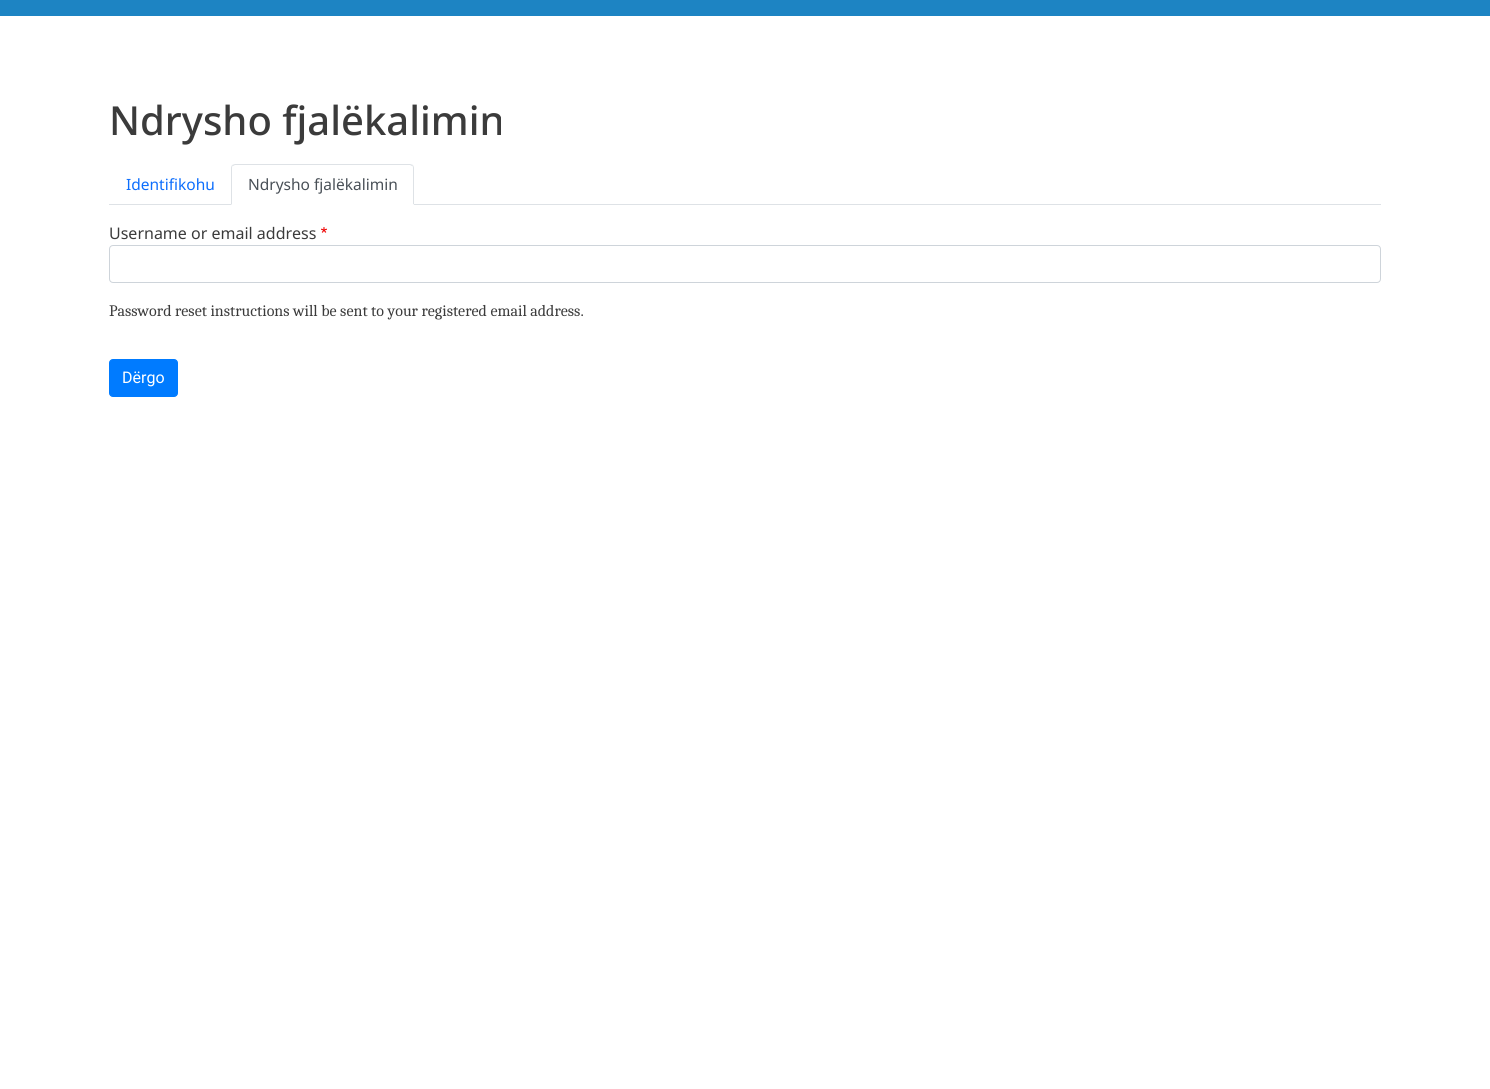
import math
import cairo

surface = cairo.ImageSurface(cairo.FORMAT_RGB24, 1490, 1089)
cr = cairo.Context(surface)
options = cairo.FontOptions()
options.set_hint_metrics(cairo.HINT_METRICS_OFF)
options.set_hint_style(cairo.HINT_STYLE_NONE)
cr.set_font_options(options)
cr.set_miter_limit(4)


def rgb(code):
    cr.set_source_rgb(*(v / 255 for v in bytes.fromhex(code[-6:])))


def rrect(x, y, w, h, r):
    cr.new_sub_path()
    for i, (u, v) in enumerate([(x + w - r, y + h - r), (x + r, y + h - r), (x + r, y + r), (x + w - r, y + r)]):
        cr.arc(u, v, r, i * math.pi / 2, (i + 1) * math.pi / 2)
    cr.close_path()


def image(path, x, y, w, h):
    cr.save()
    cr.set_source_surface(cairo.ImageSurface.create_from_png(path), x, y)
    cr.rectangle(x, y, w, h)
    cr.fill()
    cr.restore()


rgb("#ffffff")
cr.paint()
rgb("#1d84c3")
cr.rectangle(0, 0, 1490, 16)
cr.fill()
rgb("#dee2e6")
cr.rectangle(109, 204, 1272, 1)
cr.fill()
rgb("#ffffff")
cr.new_path()
cr.move_to(235, 164)
cr.line_to(410, 164)
cr.curve_to(412, 164, 414, 166, 414, 168)
cr.line_to(414, 205)
cr.line_to(231, 205)
cr.line_to(231, 168)
cr.curve_to(231, 166, 233, 164, 235, 164)
cr.close_path()
cr.fill()
rgb("#dee2e6")
cr.new_path()
cr.move_to(235, 164)
cr.line_to(232, 165)
cr.line_to(233, 166)
cr.line_to(235, 165)
cr.line_to(410, 165)
cr.line_to(412, 166)
cr.line_to(413, 165)
cr.line_to(410, 164)
cr.close_path()
cr.fill()
cr.new_path()
cr.move_to(414, 205)
cr.line_to(414, 168)
cr.curve_to(414, 167, 413.5, 166, 413, 165)
cr.line_to(412, 166)
cr.curve_to(413, 166, 413, 167, 413, 168)
cr.line_to(413, 204)
cr.close_path()
cr.fill()
rgb("#ffffff")
cr.new_path()
cr.move_to(414, 205)
cr.line_to(413, 204)
cr.line_to(232, 204)
cr.line_to(231, 205)
cr.close_path()
cr.fill()
rgb("#dee2e6")
cr.new_path()
cr.move_to(231, 205)
cr.line_to(232, 204)
cr.line_to(232, 168)
cr.curve_to(232, 167, 232, 166, 233, 166)
cr.line_to(232, 165)
cr.curve_to(231.5, 166, 231, 167, 231, 168)
cr.close_path()
cr.fill()
image("img/1.png", 321, 227, 6, 6)
rrect(109.5, 245.5, 1271, 37, 3.5)
rgb("#ced4da")
cr.set_line_width(1)
cr.stroke()
rgb("#007bff")
rrect(109.5, 359.5, 68, 37, 3.5)
cr.fill_preserve()
cr.stroke()
cr.select_font_face("Noto Sans Medium")
cr.set_font_size(40)
rgb("#3b3b3b")
cr.move_to(109, 135)
cr.show_text("Ndrysho fjalëkalimin")
cr.select_font_face("Noto Sans")
cr.set_font_size(15.5)
rgb("#0d6efd")
cr.move_to(126, 190)
cr.show_text("Identifikohu")
rgb("#495057")
cr.move_to(248, 190)
cr.show_text("Ndrysho fjalëkalimin")
cr.set_font_size(16)
rgb("#3b3b3b")
cr.move_to(109, 239)
cr.show_text("Username or email address")
cr.select_font_face("Caladea")
cr.move_to(109, 316)
cr.show_text("Password reset instructions will be sent to your registered email address.")
cr.select_font_face("Roboto")
rgb("#ffffff")
cr.move_to(122, 383)
cr.show_text("Dërgo")
surface.write_to_png("page.png")
